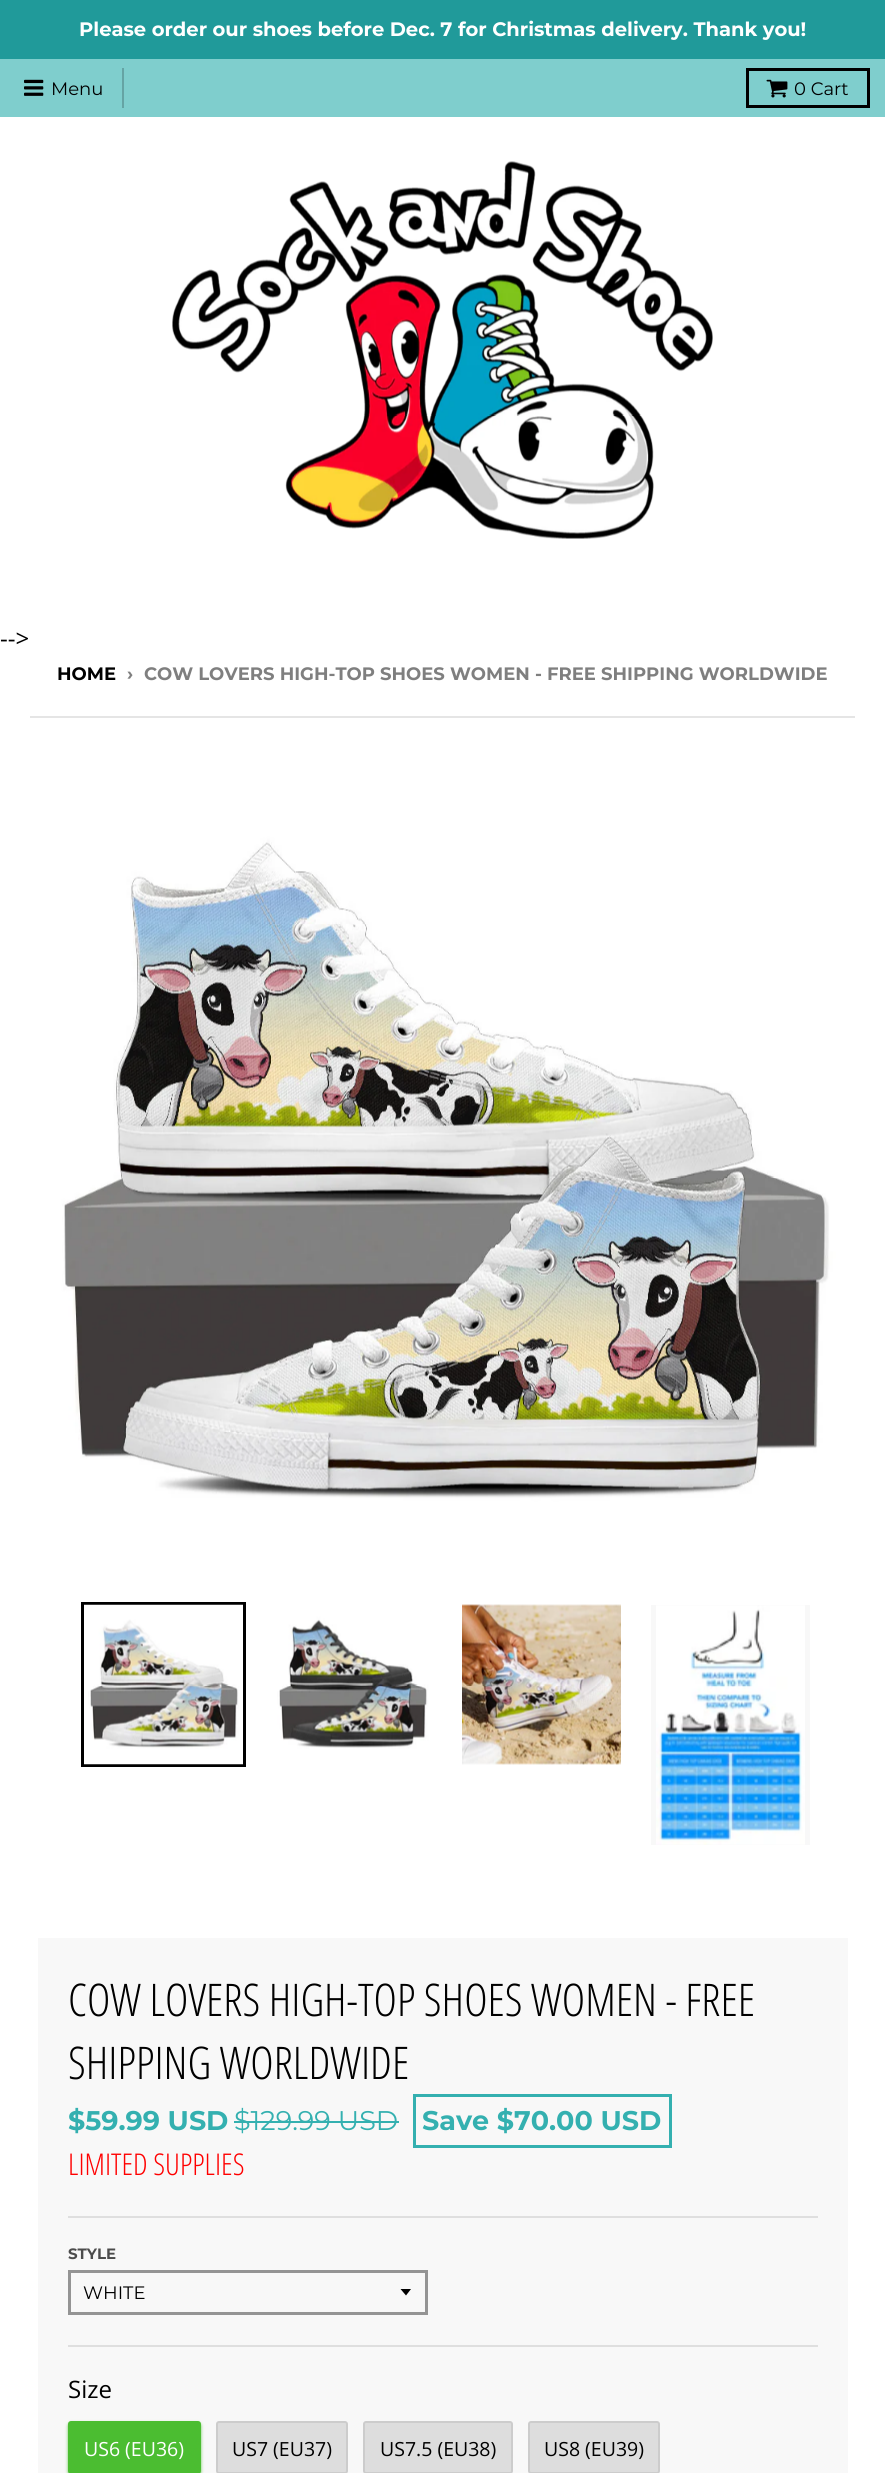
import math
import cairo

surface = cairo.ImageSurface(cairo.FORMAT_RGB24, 885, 2473)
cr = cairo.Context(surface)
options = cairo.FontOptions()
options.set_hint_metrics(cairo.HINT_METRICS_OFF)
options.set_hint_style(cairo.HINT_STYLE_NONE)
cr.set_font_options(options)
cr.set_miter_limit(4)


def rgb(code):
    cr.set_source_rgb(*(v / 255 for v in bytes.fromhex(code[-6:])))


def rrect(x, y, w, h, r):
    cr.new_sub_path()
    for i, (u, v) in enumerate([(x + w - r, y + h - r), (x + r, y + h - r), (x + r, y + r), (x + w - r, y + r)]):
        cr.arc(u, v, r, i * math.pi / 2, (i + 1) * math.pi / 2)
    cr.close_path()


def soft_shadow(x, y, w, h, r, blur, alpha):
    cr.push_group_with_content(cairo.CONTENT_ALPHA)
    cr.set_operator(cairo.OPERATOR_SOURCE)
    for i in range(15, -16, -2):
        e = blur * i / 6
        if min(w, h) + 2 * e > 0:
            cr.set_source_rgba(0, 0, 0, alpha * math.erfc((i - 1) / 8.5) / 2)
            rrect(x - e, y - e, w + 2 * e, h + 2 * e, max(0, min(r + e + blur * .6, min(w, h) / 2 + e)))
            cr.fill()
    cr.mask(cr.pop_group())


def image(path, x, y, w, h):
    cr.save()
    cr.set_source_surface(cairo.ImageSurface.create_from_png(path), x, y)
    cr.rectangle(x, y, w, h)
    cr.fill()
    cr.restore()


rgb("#ffffff")
cr.paint()
for x, y, w, h, color in [
    (0, 0, 885, 59, "#209a9a"),
    (0, 59, 885, 58, "#7fcecd"),
    (122, 68, 2, 40, "#65a4a4"),
]:
    rgb(color)
    cr.rectangle(x, y, w, h)
    cr.fill()
image("img/1.png", 24, 79, 20, 17)
cr.rectangle(747.5, 69.5, 121, 37)
rgb("#000000")
cr.set_line_width(3)
cr.stroke()
image("img/2.png", 766, 79, 22, 19)
image("img/3.png", 172, 161, 541, 378)
rgb("#e5e5e5")
cr.rectangle(30, 716, 825, 2)
cr.fill()
image("img/4.png", 30, 762, 825, 825)
cr.rectangle(82.5, 1603.5, 162, 162)
rgb("#000000")
cr.stroke()
image("img/5.png", 84, 1604, 159, 161)
image("img/6.png", 273, 1605, 159, 159)
image("img/7.png", 462, 1604, 159, 161)
rgb("#f8f8f8")
cr.rectangle(651, 1605, 159, 240)
cr.fill()
image("img/8.png", 656, 1605, 149, 240)
for x, y, w, h, color in [
    (38, 1938, 810, 535, "#f8f8f8"),
    (68, 2216, 750, 2, "#dfdfdf"),
    (234, 2121, 165, 2, "#34b0b0"),
    (413, 2094, 259, 3, "#34b0b0"),
    (413, 2145, 84, 3, "#34b0b0"),
    (413, 2094, 3, 54, "#34b0b0"),
    (669, 2094, 3, 54, "#34b0b0"),
    (497, 2145, 175, 3, "#34b0b0"),
    (68, 2345, 750, 2, "#dfdfdf"),
]:
    rgb(color)
    cr.rectangle(x, y, w, h)
    cr.fill()
rgb("#000000")
cr.new_path()
cr.move_to(400.5, 2289)
cr.line_to(406, 2295.5)
cr.line_to(411, 2289)
cr.close_path()
cr.fill()
cr.rectangle(69.5, 2271.5, 357, 42)
rgb("#949494")
cr.stroke()
rgb("#4bbd31")
soft_shadow(68, 2423, 133, 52, 3, 1.5, 0.8)
rgb("#4bbd31")
rrect(68, 2421, 133, 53, 3)
cr.fill()
rgb("#dddddd")
rrect(217, 2422, 130, 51, 2)
cr.fill_preserve()
rgb("#cccccc")
cr.set_line_width(2)
cr.stroke()
rgb("#dddddd")
rrect(364, 2422, 148, 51, 2)
cr.fill_preserve()
rgb("#cccccc")
cr.stroke()
rgb("#dddddd")
rrect(529, 2422, 130, 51, 2)
cr.fill_preserve()
rgb("#cccccc")
cr.stroke()
cr.select_font_face("Montserrat", cairo.FONT_SLANT_NORMAL, cairo.FONT_WEIGHT_BOLD)
cr.set_font_size(19.5)
rgb("#ffffff")
cr.move_to(79, 36)
cr.show_text("Please order our shoes before Dec. 7 for Christmas delivery. Thank you!")
cr.select_font_face("Montserrat")
cr.set_font_size(18)
rgb("#000000")
cr.move_to(51, 95)
cr.show_text("Menu")
cr.move_to(794, 95)
cr.show_text("0 Cart")
cr.select_font_face("Open Sans")
cr.set_font_size(24)
cr.move_to(0, 647)
cr.show_text("-->")
cr.select_font_face("Montserrat", cairo.FONT_SLANT_NORMAL, cairo.FONT_WEIGHT_BOLD)
cr.set_font_size(18)
cr.move_to(57, 680)
cr.show_text("HOME")
rgb("#7f7f7f")
cr.move_to(127, 680)
cr.show_text("›")
cr.move_to(144, 680)
cr.show_text("COW LOVERS HIGH-TOP SHOES WOMEN - FREE SHIPPING WORLDWIDE")
cr.select_font_face("Open Sans Condensed Light")
cr.set_font_size(45)
rgb("#000000")
cr.move_to(68, 2016)
cr.show_text("COW LOVERS HIGH-TOP SHOES WOMEN - FREE")
cr.move_to(68, 2079)
cr.show_text("SHIPPING WORLDWIDE")
cr.select_font_face("Montserrat", cairo.FONT_SLANT_NORMAL, cairo.FONT_WEIGHT_BOLD)
cr.set_font_size(27)
rgb("#34b0b0")
cr.move_to(68, 2130)
cr.show_text("$59.99 USD")
cr.select_font_face("Montserrat")
cr.move_to(234, 2130)
cr.show_text("$129.99 USD")
cr.select_font_face("Montserrat", cairo.FONT_SLANT_NORMAL, cairo.FONT_WEIGHT_BOLD)
cr.move_to(422, 2130)
cr.show_text("Save $70.00 USD")
cr.select_font_face("Open Sans Condensed Light")
cr.set_font_size(30)
rgb("#ff0000")
cr.move_to(68, 2175)
cr.show_text("LIMITED SUPPLIES")
cr.select_font_face("Montserrat", cairo.FONT_SLANT_NORMAL, cairo.FONT_WEIGHT_BOLD)
cr.set_font_size(15)
rgb("#4c4c4c")
cr.move_to(68, 2259)
cr.show_text("STYLE")
cr.select_font_face("Montserrat")
cr.set_font_size(18)
rgb("#000000")
cr.move_to(83, 2299)
cr.show_text("WHITE")
cr.select_font_face("Open Sans")
cr.set_font_size(24)
cr.move_to(68, 2398)
cr.show_text("Size")
cr.set_font_size(19.5)
rgb("#ffffff")
cr.move_to(84, 2456)
cr.show_text("US6 (EU36)")
rgb("#000000")
for x, y, s in [
    (232, 2456, "US7 (EU37)"),
    (380, 2456, "US7.5 (EU38)"),
    (544, 2456, "US8 (EU39)"),
]:
    cr.move_to(x, y)
    cr.show_text(s)
surface.write_to_png("page.png")
